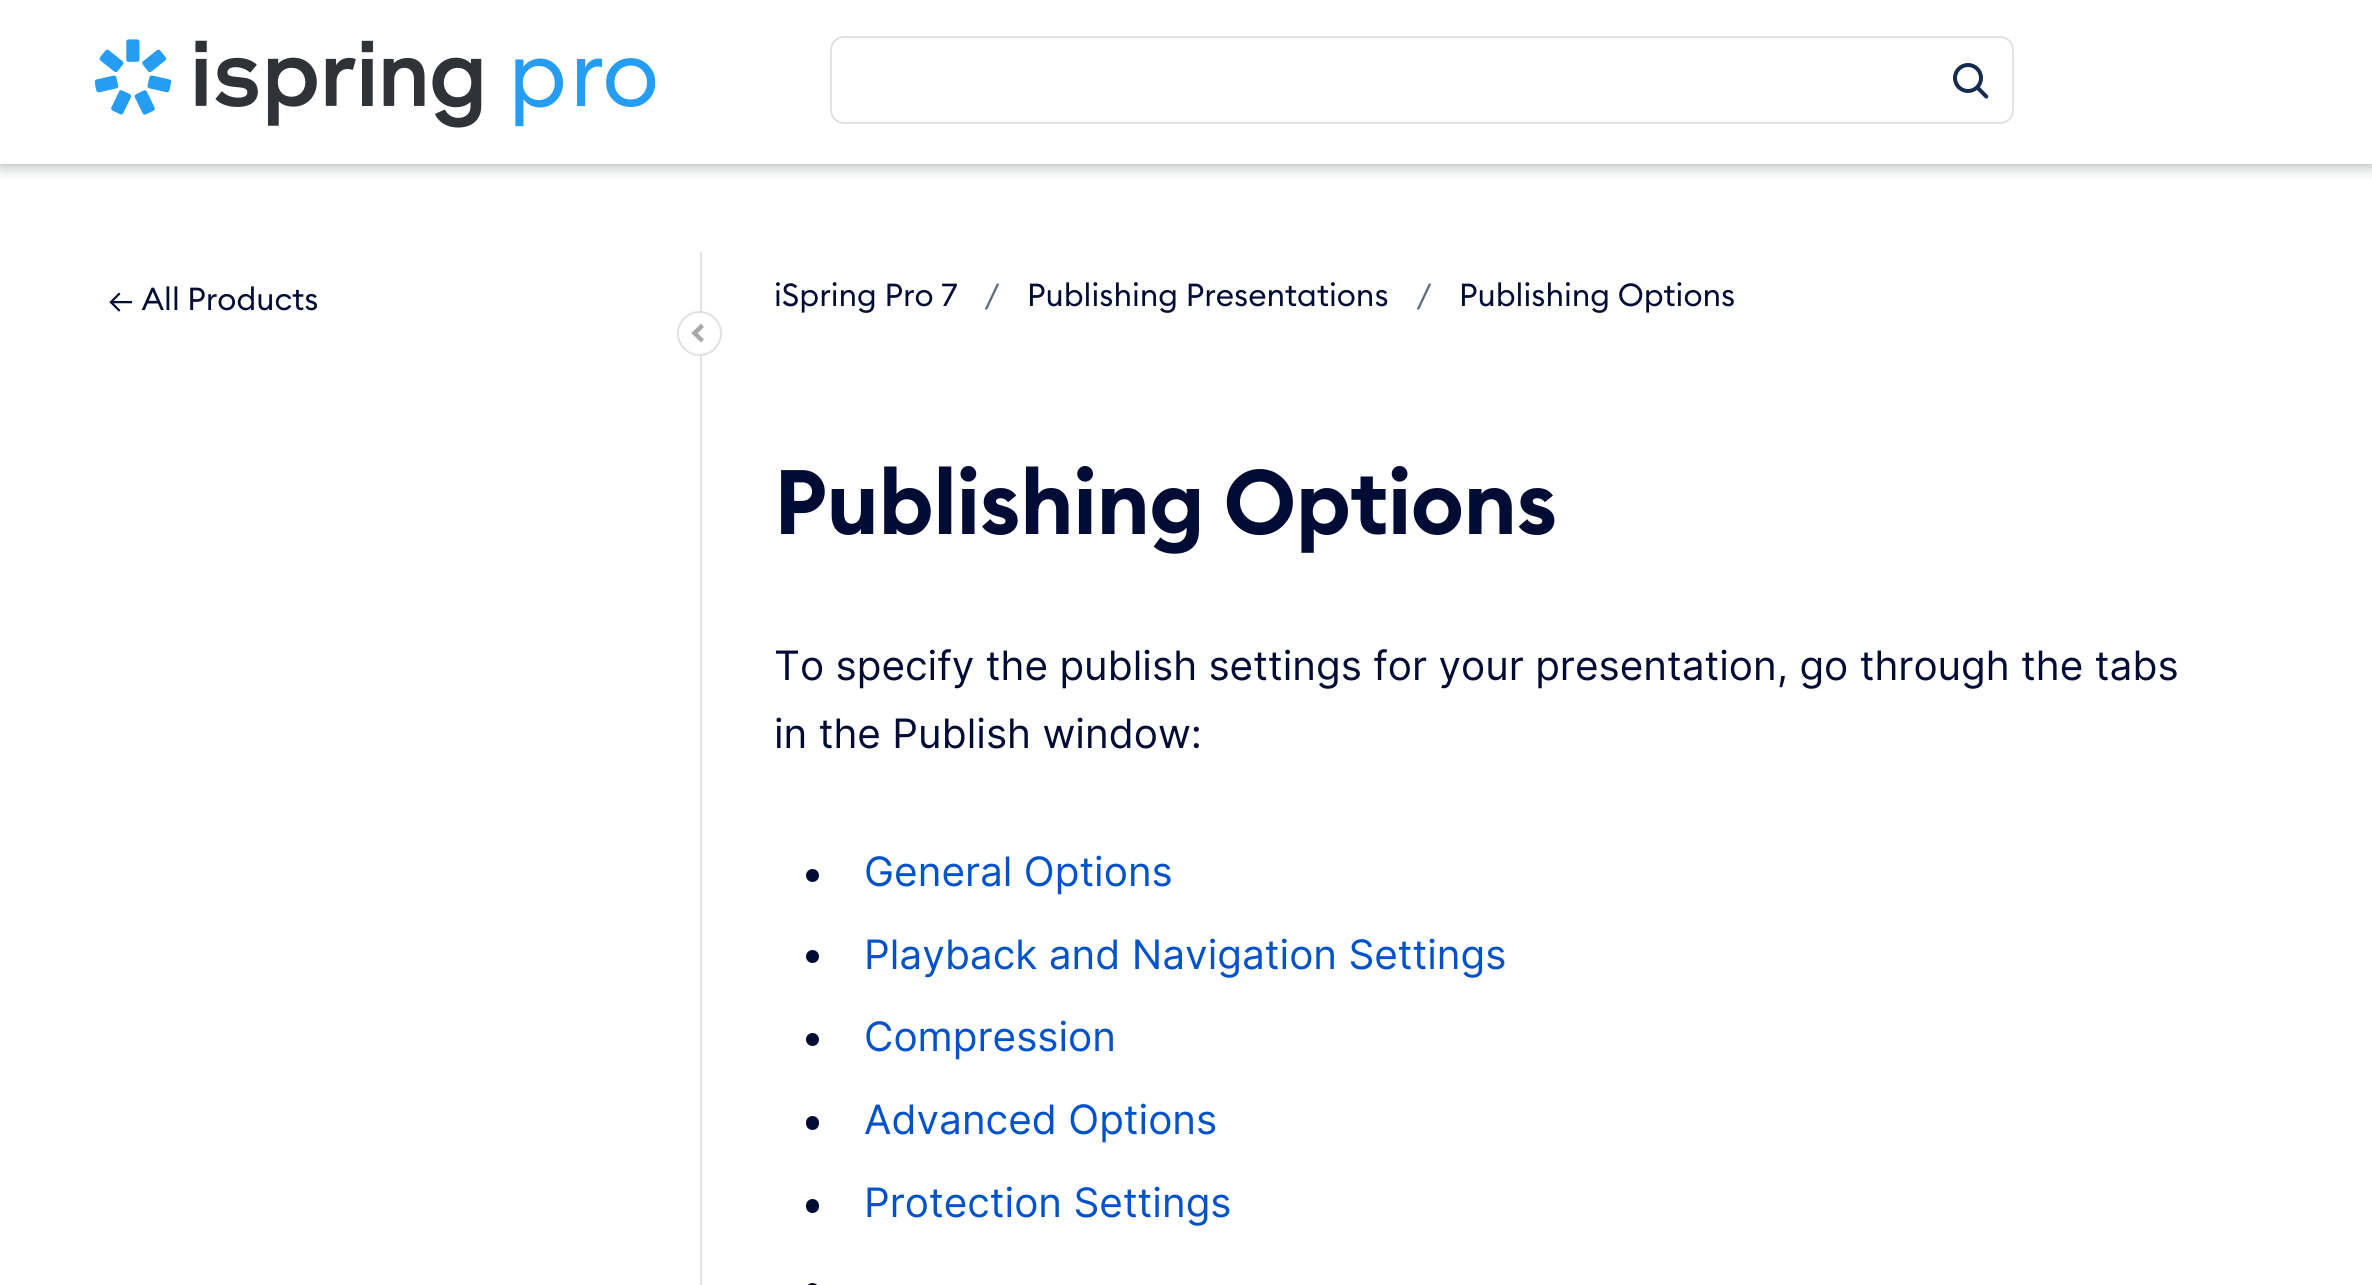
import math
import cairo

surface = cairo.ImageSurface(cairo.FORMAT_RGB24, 2372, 1285)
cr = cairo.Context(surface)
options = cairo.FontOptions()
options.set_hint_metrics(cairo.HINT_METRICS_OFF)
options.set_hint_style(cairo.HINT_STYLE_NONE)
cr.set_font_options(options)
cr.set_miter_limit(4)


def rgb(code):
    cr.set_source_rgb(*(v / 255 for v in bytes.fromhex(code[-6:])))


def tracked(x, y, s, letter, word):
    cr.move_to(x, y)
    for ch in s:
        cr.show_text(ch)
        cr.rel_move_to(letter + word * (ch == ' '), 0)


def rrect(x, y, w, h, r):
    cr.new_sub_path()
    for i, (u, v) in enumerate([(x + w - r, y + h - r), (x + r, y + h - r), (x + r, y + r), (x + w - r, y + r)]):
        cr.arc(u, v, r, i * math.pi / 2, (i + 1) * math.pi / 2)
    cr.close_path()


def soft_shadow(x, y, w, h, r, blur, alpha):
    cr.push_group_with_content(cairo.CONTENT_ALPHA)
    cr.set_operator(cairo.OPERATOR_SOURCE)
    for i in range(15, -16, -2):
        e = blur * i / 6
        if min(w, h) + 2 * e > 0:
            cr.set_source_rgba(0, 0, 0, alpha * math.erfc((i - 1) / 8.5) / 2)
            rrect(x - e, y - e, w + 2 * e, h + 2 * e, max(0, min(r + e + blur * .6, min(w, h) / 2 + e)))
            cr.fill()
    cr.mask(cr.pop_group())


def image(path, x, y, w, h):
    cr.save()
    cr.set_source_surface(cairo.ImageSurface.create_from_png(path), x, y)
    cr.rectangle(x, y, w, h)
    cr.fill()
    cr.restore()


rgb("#ffffff")
cr.paint()
cr.save()
cr.rectangle(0, 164, 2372, 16)
cr.clip()
rgb("#3b484f")
soft_shadow(0, 0, 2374, 164, 0, 9, 0.5)
cr.restore()
image("img/1.png", 95, 39, 560, 89)
rrect(831, 37, 1182, 86, 13)
rgb("#dfe1e6")
cr.stroke()
image("img/2.png", 1953, 63, 36, 36)
cr.rectangle(700, 252, 2, 1033)
cr.fill()
rgb("#ffffff")
cr.arc(699.5, 333.5, 21.5, 0, 2 * math.pi)
cr.fill_preserve()
rgb("#dfe1e6")
cr.stroke()
rgb("#a9a9a9")
cr.new_path()
cr.move_to(701, 342.5)
cr.line_to(691.5, 333)
cr.line_to(694.5, 330)
cr.line_to(704, 339.5)
cr.close_path()
cr.fill()
cr.new_path()
cr.move_to(694.5, 336.5)
cr.line_to(691.5, 333)
cr.line_to(701, 323.5)
cr.line_to(704, 327)
cr.close_path()
cr.fill()
rgb("#000c34")
cr.arc(812.5, 875.5, 6.5, 0, 2 * math.pi)
cr.fill()
cr.arc(812.5, 956.5, 6.5, 0, 2 * math.pi)
cr.fill()
cr.arc(812.5, 1039.5, 6.5, 0, 2 * math.pi)
cr.fill()
rrect(806, 1116, 13, 14, 6.5)
cr.fill()
rrect(806, 1199, 13, 14, 6.5)
cr.fill()
rrect(806, 1283, 13, 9, 6.5)
cr.fill()
cr.select_font_face("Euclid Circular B")
cr.set_font_size(31.5)
cr.move_to(108, 310)
cr.show_text("← All Products")
cr.move_to(774, 306)
cr.show_text("iSpring Pro 7")
rgb("#5e6c84")
cr.move_to(984, 306)
cr.show_text("/")
rgb("#000c34")
cr.move_to(1027, 306)
cr.show_text("Publishing Presentations")
rgb("#5e6c84")
cr.move_to(1416, 306)
cr.show_text("/")
rgb("#000c34")
cr.move_to(1459, 306)
cr.show_text("Publishing Options")
cr.select_font_face("Euclid Circular B SemiBold")
cr.set_font_size(90)
tracked(774, 534, "Publishing Options", -0.9, 0)
cr.select_font_face("Inter")
cr.set_font_size(40.5)
cr.move_to(774, 680)
cr.show_text("To specify the publish settings for your presentation, go through the tabs")
cr.move_to(774, 748)
cr.show_text("in the Publish window:")
rgb("#0052cc")
for x, y, s in [
    (864, 886, "General Options"),
    (864, 969, "Playback and Navigation Settings"),
    (864, 1051, "Compression"),
    (864, 1134, "Advanced Options"),
    (864, 1217, "Protection Settings"),
]:
    cr.move_to(x, y)
    cr.show_text(s)
surface.write_to_png("page.png")
